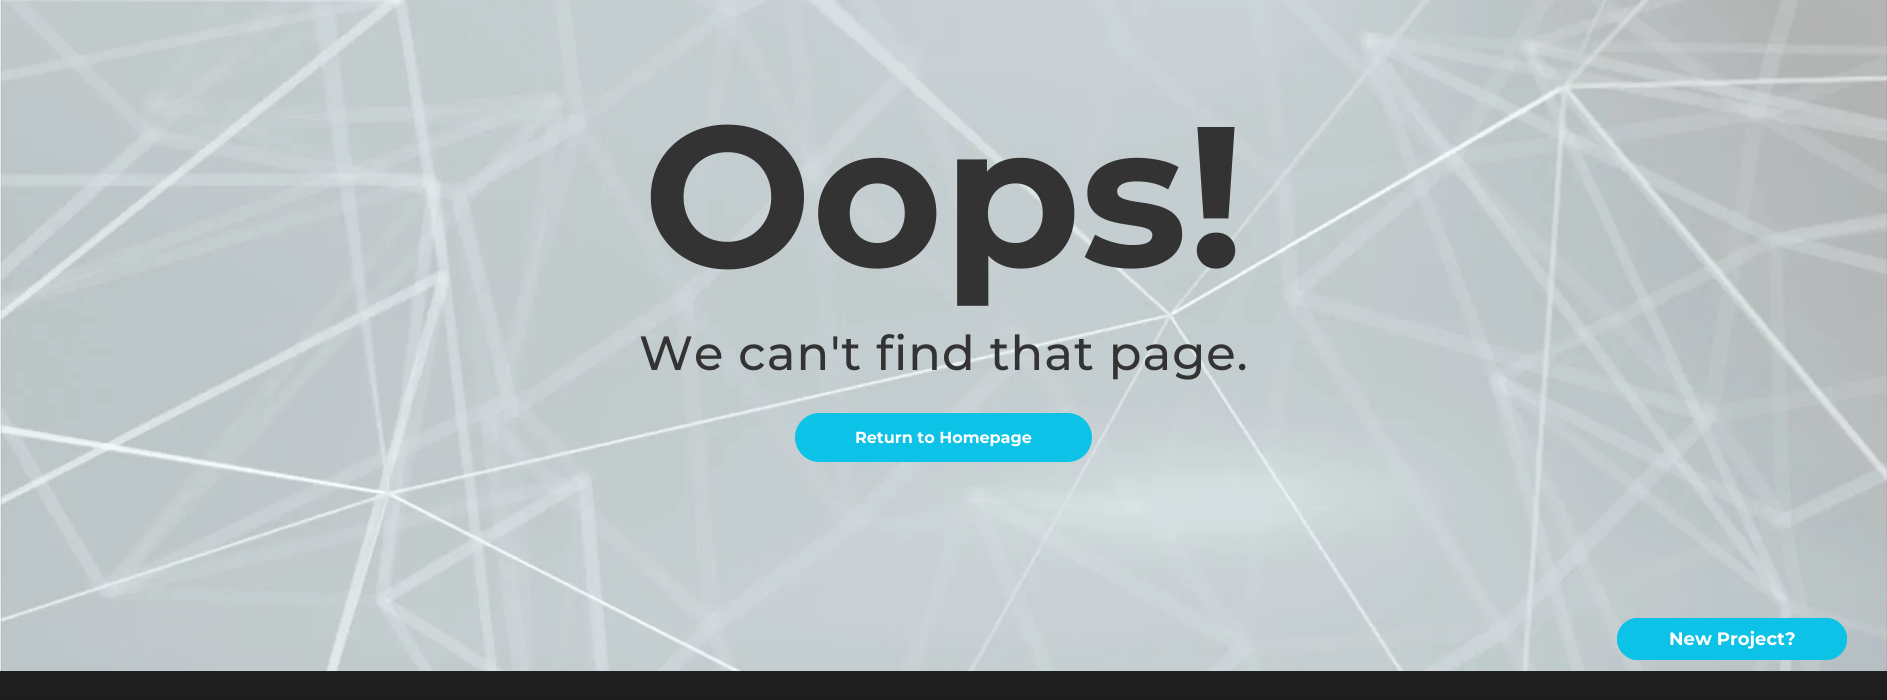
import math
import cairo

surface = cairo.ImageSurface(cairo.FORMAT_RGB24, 1887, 700)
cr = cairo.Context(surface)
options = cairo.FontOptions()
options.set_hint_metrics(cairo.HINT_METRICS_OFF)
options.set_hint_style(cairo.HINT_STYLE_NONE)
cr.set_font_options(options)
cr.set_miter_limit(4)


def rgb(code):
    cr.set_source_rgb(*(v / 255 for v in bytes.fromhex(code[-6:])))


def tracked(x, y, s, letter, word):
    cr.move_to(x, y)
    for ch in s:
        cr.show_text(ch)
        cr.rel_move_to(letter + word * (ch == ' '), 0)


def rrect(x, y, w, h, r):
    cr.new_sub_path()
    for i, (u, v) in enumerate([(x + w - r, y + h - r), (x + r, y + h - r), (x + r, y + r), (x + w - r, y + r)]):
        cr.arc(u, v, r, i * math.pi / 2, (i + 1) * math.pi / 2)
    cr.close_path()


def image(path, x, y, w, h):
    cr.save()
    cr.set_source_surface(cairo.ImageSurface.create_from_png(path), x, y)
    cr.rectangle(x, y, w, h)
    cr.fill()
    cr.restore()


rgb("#ffffff")
cr.paint()
image("img/1.png", 0, 0, 1887, 671)
rgb("#0cc2e7")
rrect(795, 413, 297, 49, 24.5)
cr.fill()
rrect(1617, 618, 230, 42, 21)
cr.fill()
gradient = cairo.LinearGradient(944, 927, 944, 671)
gradient.add_color_stop_rgba(0, 0, 0, 0, 1)
gradient.add_color_stop_rgba(1, 0.129, 0.129, 0.129, 1)
cr.set_source(gradient)
cr.rectangle(0, 671, 1887, 29)
cr.fill()
cr.select_font_face("Montserrat", cairo.FONT_SLANT_NORMAL, cairo.FONT_WEIGHT_BOLD)
cr.set_font_size(200)
rgb("#333333")
cr.move_to(643, 267)
cr.show_text("Oops!")
cr.select_font_face("Montserrat Medium")
cr.set_font_size(48)
tracked(639, 370, "We can't find that page.", 1, 0)
cr.select_font_face("Montserrat", cairo.FONT_SLANT_NORMAL, cairo.FONT_WEIGHT_BOLD)
cr.set_font_size(16)
rgb("#ffffff")
cr.move_to(855, 443)
cr.show_text("Return to Homepage")
cr.set_font_size(18)
cr.move_to(1669, 645)
cr.show_text("New Project?")
surface.write_to_png("page.png")
